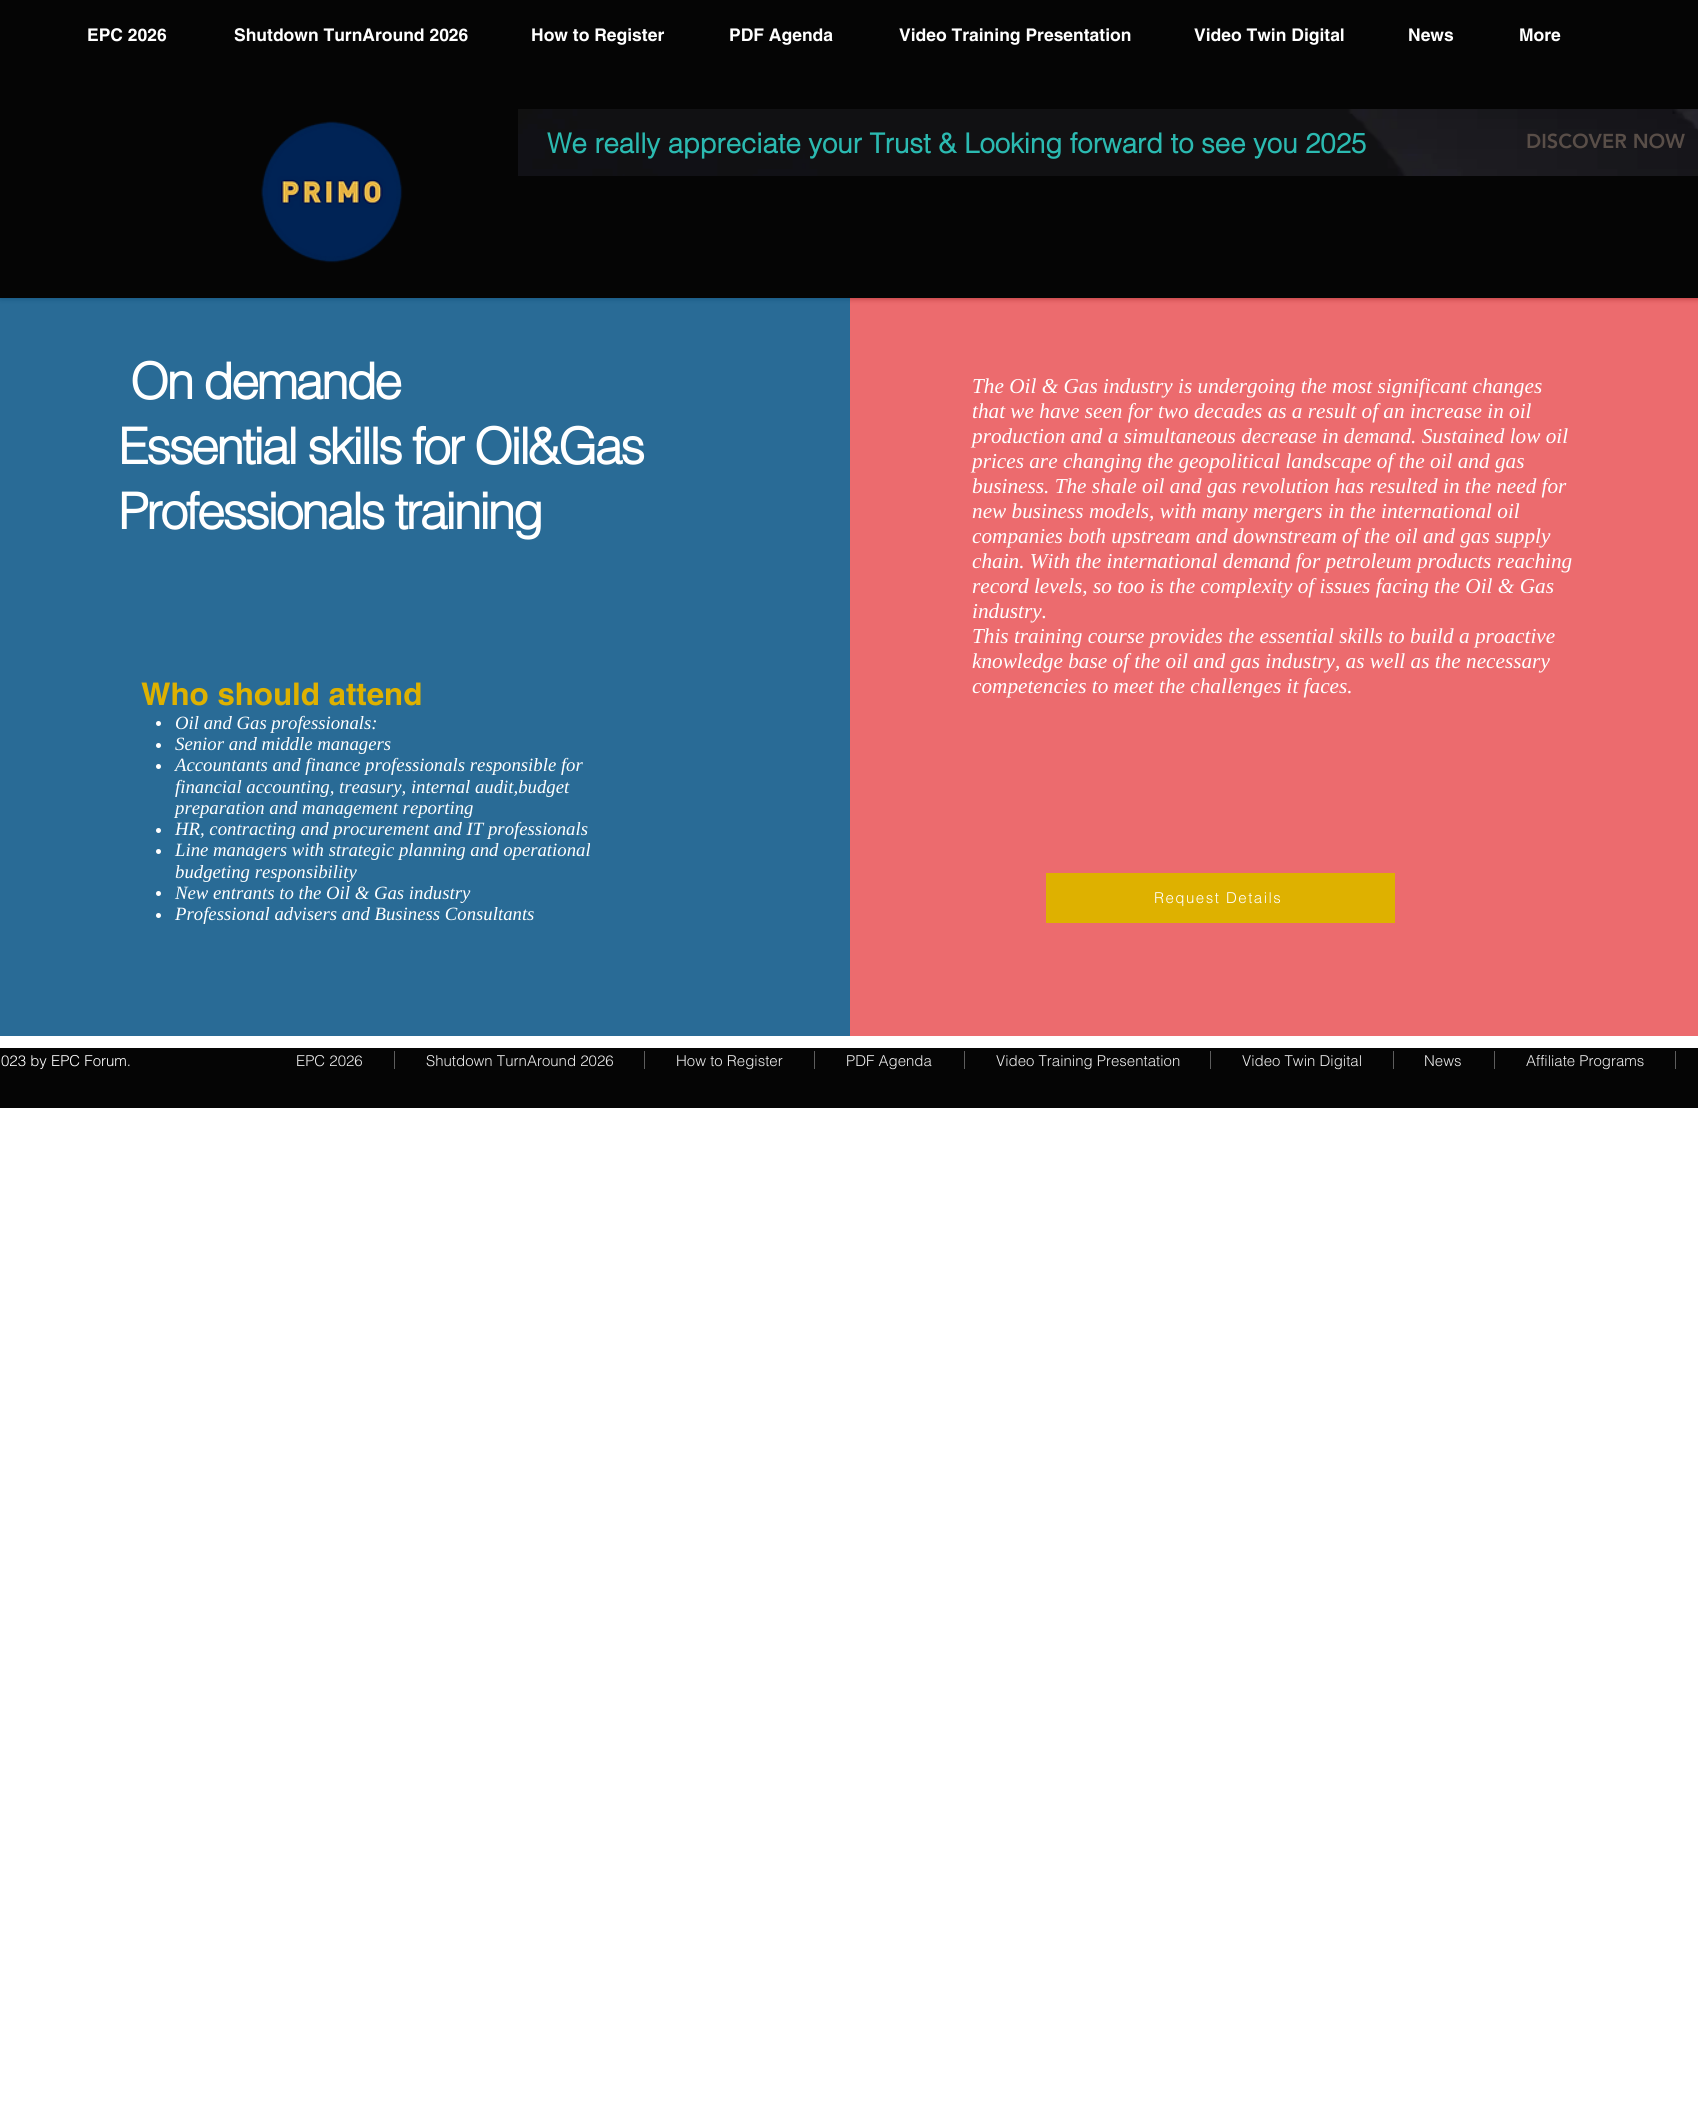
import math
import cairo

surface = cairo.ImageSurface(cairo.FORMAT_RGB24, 1698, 2107)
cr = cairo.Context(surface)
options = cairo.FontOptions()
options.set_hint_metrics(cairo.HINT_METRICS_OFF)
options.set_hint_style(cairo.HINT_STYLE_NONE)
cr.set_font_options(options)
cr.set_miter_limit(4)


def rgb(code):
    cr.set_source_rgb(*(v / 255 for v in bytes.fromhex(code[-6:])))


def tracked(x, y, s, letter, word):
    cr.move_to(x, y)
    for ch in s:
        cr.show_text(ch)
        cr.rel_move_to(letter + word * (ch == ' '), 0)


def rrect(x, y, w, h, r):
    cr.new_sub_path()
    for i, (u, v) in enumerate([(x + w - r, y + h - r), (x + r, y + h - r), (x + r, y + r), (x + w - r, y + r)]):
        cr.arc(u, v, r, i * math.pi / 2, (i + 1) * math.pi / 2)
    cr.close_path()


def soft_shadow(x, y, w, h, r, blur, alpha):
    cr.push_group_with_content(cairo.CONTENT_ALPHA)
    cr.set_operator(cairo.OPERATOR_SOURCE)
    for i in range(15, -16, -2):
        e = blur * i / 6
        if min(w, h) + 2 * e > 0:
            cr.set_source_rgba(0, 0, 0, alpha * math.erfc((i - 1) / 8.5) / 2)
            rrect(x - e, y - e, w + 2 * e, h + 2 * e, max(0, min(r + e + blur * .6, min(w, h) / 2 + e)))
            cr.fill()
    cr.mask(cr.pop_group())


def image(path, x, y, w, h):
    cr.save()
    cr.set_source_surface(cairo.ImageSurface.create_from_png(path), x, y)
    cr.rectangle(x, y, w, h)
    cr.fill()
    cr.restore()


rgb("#ffffff")
cr.paint()
rgb("#000000")
soft_shadow(0, 0, 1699, 298, 0, 3, 0.7)
rgb("#050505")
cr.rectangle(0, 0, 1698, 298)
cr.fill()
image("img/1.png", 261, 121, 142, 142)
image("img/2.png", 518, 109, 1180, 67)
cr.set_source_rgba(0.016, 0.318, 0.518, 0.85)
cr.rectangle(0, 298, 850, 738)
cr.fill()
rgb("#ffffff")
cr.arc(158.5, 723.5, 2.5, 0, 2 * math.pi)
cr.fill()
cr.arc(158.5, 745.5, 2.5, 0, 2 * math.pi)
cr.fill()
cr.arc(158.5, 766.5, 2.5, 0, 2 * math.pi)
cr.fill()
cr.arc(158.5, 830.5, 2.5, 0, 2 * math.pi)
cr.fill()
cr.arc(158.5, 851.5, 2.5, 0, 2 * math.pi)
cr.fill()
cr.arc(158.5, 893.5, 2.5, 0, 2 * math.pi)
cr.fill()
cr.arc(158.5, 915.5, 2.5, 0, 2 * math.pi)
cr.fill()
cr.set_source_rgba(0.886, 0.11, 0.129, 0.65)
cr.rectangle(850, 298, 848, 738)
cr.fill()
rgb("#deb100")
cr.rectangle(1046, 873, 349, 50)
cr.fill()
rgb("#050505")
cr.rectangle(0, 1048, 1698, 60)
cr.fill()
rgb("#5d5d5d")
cr.rectangle(394, 1051, 1, 18)
cr.rectangle(644, 1051, 1, 18)
cr.rectangle(814, 1051, 1, 18)
cr.rectangle(964, 1051, 1, 18)
cr.rectangle(1210, 1051, 1, 18)
cr.rectangle(1393, 1051, 1, 18)
cr.rectangle(1494, 1051, 1, 18)
cr.rectangle(1675, 1051, 1, 18)
cr.fill()
cr.select_font_face("helvetica", cairo.FONT_SLANT_NORMAL, cairo.FONT_WEIGHT_BOLD)
cr.set_font_size(17.5)
rgb("#ffffff")
for x, y, s in [
    (87, 41, "EPC 2026"),
    (234, 41, "Shutdown TurnAround 2026"),
    (531, 41, "How to Register"),
    (729, 41, "PDF Agenda"),
    (899, 41, "Video Training Presentation"),
    (1194, 41, "Video Twin Digital"),
    (1408, 41, "News"),
    (1519, 41, "More"),
]:
    cr.move_to(x, y)
    cr.show_text(s)
cr.select_font_face("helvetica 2", cairo.FONT_SLANT_NORMAL, cairo.FONT_WEIGHT_BOLD)
cr.set_font_size(27.5)
rgb("#2bbab1")
cr.move_to(547, 153)
cr.show_text("We really appreciate your Trust & Looking forward to see you 2025")
cr.select_font_face("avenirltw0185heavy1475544 Black")
cr.set_font_size(20)
rgb("#594e48")
cr.move_to(1526, 148)
cr.show_text("DISCOVER NOW")
cr.select_font_face("helvetica 2", cairo.FONT_SLANT_NORMAL, cairo.FONT_WEIGHT_BOLD)
cr.set_font_size(50)
rgb("#ffffff")
for x, y, s in [
    (130, 399, "On demande"),
    (118, 464, "Essential skills for Oil&Gas"),
    (118, 529, "Professionals training"),
]:
    tracked(x, y, s, -2.5, 0)
cr.select_font_face("helvetica", cairo.FONT_SLANT_NORMAL, cairo.FONT_WEIGHT_BOLD)
cr.set_font_size(31.25)
rgb("#deb100")
cr.move_to(141, 705)
cr.show_text("Who should attend")
cr.select_font_face("Liberation Serif", cairo.FONT_SLANT_ITALIC)
cr.set_font_size(18.75)
rgb("#ffffff")
for x, y, s in [
    (175, 729, "Oil and Gas professionals:"),
    (175, 750, "Senior and middle managers"),
    (175, 771, "Accountants and finance professionals responsible for"),
    (175, 793, "financial accounting, treasury, internal audit,budget"),
    (175, 814, "preparation and management reporting"),
    (175, 835, "HR, contracting and procurement and IT professionals"),
    (175, 856, "Line managers with strategic planning and operational"),
    (175, 878, "budgeting responsibility"),
    (175, 899, "New entrants to the Oil & Gas industry"),
    (175, 920, "Professional advisers and Business Consultants"),
]:
    cr.move_to(x, y)
    cr.show_text(s)
cr.set_font_size(21.25)
for x, y, s in [
    (972, 393, "The Oil & Gas industry is undergoing the most significant changes"),
    (972, 418, "that we have seen for two decades as a result of an increase in oil"),
    (972, 443, "production and a simultaneous decrease in demand. Sustained low oil"),
    (972, 468, "prices are changing the geopolitical landscape of the oil and gas"),
    (972, 493, "business. The shale oil and gas revolution has resulted in the need for"),
    (972, 518, "new business models, with many mergers in the international oil"),
    (972, 543, "companies both upstream and downstream of the oil and gas supply"),
    (972, 568, "chain. With the international demand for petroleum products reaching"),
    (972, 593, "record levels, so too is the complexity of issues facing the Oil & Gas"),
    (972, 618, "industry."),
    (972, 643, "This training course provides the essential skills to build a proactive"),
    (972, 668, "knowledge base of the oil and gas industry, as well as the necessary"),
    (972, 693, "competencies to meet the challenges it faces."),
]:
    cr.move_to(x, y)
    cr.show_text(s)
cr.select_font_face("helvetica Light")
cr.set_font_size(15)
tracked(1154, 903, "Request Details", 1.5, 0)
cr.move_to(1, 1066)
cr.show_text("023 by EPC Forum.")
rgb("#ececec")
for x, y, s in [
    (296, 1066, "EPC 2026"),
    (426, 1066, "Shutdown TurnAround 2026"),
    (676, 1066, "How to Register"),
    (846, 1066, "PDF Agenda"),
    (996, 1066, "Video Training Presentation"),
    (1242, 1066, "Video Twin Digital"),
    (1424, 1066, "News"),
    (1526, 1066, "Affiliate Programs"),
]:
    cr.move_to(x, y)
    cr.show_text(s)
surface.write_to_png("page.png")
